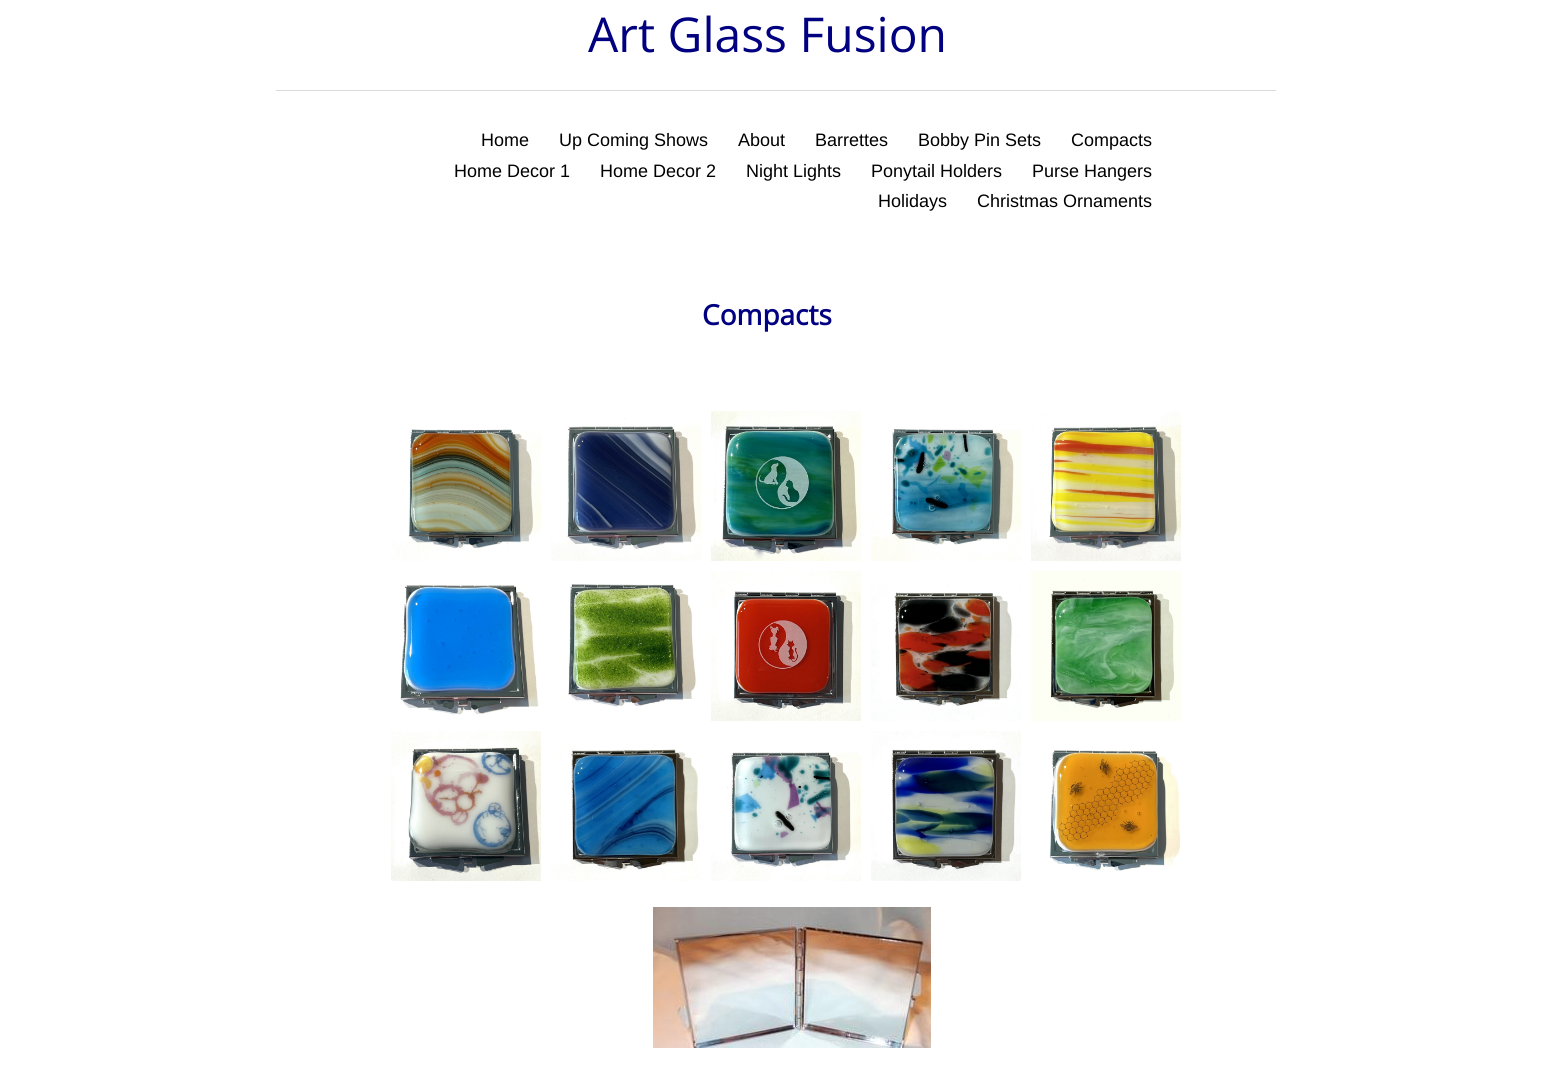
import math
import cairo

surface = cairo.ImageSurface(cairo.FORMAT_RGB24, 1551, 1076)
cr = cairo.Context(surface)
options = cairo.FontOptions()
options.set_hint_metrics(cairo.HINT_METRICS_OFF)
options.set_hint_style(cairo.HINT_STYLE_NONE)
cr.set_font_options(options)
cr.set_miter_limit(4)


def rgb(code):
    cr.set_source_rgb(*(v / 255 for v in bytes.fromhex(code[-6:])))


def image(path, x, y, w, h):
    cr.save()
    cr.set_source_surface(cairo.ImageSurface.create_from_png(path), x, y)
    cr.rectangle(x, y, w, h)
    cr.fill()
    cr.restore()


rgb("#ffffff")
cr.paint()
rgb("#dadada")
cr.rectangle(276, 90, 1000, 1)
cr.fill()
image("img/1.png", 391, 429, 150, 132)
image("img/2.png", 551, 418, 150, 143)
image("img/3.png", 711, 411, 150, 150)
image("img/4.png", 871, 429, 150, 132)
image("img/5.png", 1031, 411, 150, 150)
image("img/6.png", 400, 585, 139, 130)
image("img/7.png", 568, 584, 132, 123)
image("img/8.png", 711, 571, 150, 150)
image("img/9.png", 871, 584, 150, 137)
image("img/10.png", 1031, 571, 150, 150)
image("img/11.png", 391, 731, 150, 150)
image("img/12.png", 551, 734, 150, 147)
image("img/13.png", 711, 751, 150, 130)
image("img/14.png", 871, 731, 150, 150)
image("img/15.png", 1049, 750, 132, 121)
image("img/16.png", 653, 907, 278, 141)
cr.select_font_face("Open Sans")
cr.set_font_size(48)
rgb("#000080")
cr.move_to(588, 52)
cr.show_text("Art Glass Fusion")
cr.select_font_face("Liberation Sans")
cr.set_font_size(18)
rgb("#000000")
for x, y, s in [
    (481, 146, "Home"),
    (559, 146, "Up Coming Shows"),
    (738, 146, "About"),
    (815, 146, "Barrettes"),
    (918, 146, "Bobby Pin Sets"),
    (1071, 146, "Compacts"),
    (454, 177, "Home Decor 1"),
    (600, 177, "Home Decor 2"),
    (746, 177, "Night Lights"),
    (871, 177, "Ponytail Holders"),
    (1032, 177, "Purse Hangers"),
    (878, 207, "Holidays"),
    (977, 207, "Christmas Ornaments"),
]:
    cr.move_to(x, y)
    cr.show_text(s)
cr.select_font_face("Open Sans", cairo.FONT_SLANT_NORMAL, cairo.FONT_WEIGHT_BOLD)
cr.set_font_size(28)
rgb("#000080")
cr.move_to(702, 325)
cr.show_text("Compacts")
surface.write_to_png("page.png")
